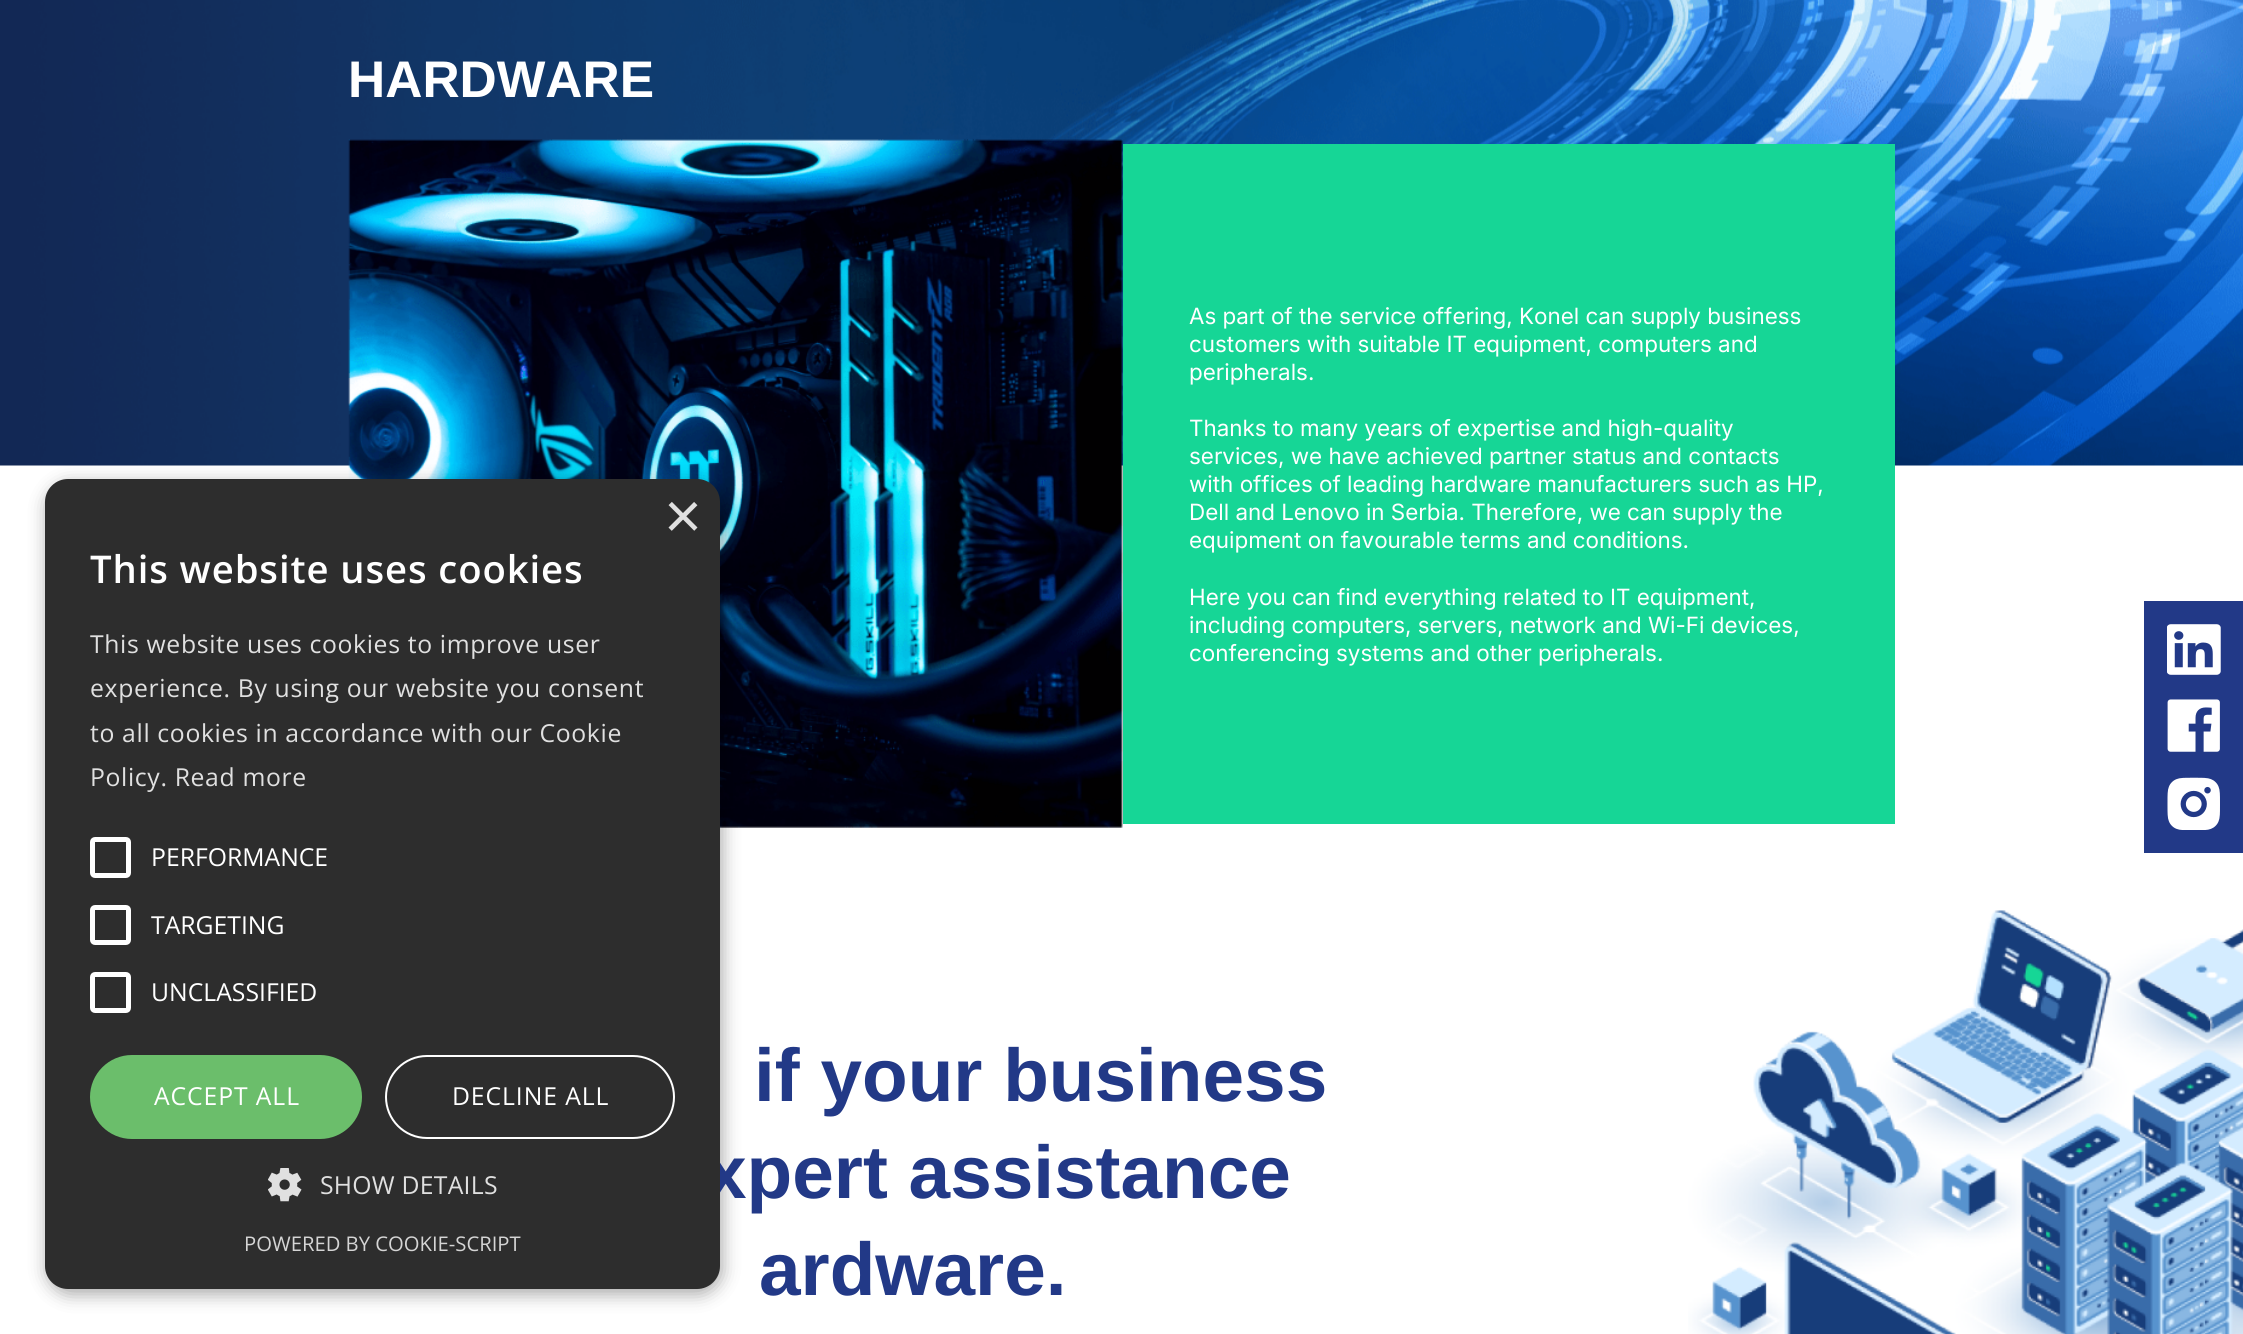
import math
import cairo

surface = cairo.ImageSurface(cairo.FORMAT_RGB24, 2243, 1334)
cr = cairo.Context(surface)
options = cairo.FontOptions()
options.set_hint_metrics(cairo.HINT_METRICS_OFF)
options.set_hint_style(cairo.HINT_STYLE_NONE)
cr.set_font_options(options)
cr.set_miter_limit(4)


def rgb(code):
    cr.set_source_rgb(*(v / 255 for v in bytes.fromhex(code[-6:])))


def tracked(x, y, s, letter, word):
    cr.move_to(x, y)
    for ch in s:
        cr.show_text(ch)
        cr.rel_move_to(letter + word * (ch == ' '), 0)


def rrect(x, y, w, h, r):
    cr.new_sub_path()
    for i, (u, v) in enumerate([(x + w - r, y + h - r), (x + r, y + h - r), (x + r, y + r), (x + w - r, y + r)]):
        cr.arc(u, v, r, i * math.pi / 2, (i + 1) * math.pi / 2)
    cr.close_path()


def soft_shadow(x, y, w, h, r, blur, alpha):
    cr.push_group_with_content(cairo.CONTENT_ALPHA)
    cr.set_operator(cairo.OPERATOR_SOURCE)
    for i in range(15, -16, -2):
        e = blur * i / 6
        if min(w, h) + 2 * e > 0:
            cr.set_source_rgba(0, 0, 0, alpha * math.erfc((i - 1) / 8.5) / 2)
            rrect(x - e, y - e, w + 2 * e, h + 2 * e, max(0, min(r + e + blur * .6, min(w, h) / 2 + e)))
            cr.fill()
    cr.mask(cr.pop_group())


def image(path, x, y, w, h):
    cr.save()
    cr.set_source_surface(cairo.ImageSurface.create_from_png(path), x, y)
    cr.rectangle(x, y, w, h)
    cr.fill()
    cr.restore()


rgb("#ffffff")
cr.paint()
image("img/1.png", 0, 0, 2243, 466)
image("img/2.png", 348, 139, 775, 689)
rgb("#16d696")
cr.rectangle(1123, 144, 772, 680)
cr.fill()
image("img/3.png", 1688, 910, 555, 424)
rgb("#000000")
soft_shadow(47, 484, 675, 810, 23, 9, 0.35)
rgb("#223987")
cr.rectangle(2144, 601, 99, 252)
cr.fill()
image("img/5.png", 2167, 624, 54, 51)
image("img/6.png", 2167, 699, 53, 53)
image("img/7.png", 2167, 777, 53, 53)
cr.select_font_face("Liberation Sans", cairo.FONT_SLANT_NORMAL, cairo.FONT_WEIGHT_BOLD)
cr.set_font_size(51.5)
rgb("#ffffff")
cr.move_to(348, 97)
cr.show_text("HARDWARE")
cr.select_font_face("Inter")
cr.set_font_size(22.4)
for x, y, s in [
    (1189, 324, "As part of the service offering, Konel can supply business"),
    (1189, 352, "customers with suitable IT equipment, computers and"),
    (1189, 380, "peripherals."),
    (1189, 436, "Thanks to many years of expertise and high-quality"),
    (1189, 464, "services, we have achieved partner status and contacts"),
    (1189, 492, "with offices of leading hardware manufacturers such as HP,"),
    (1189, 520, "Dell and Lenovo in Serbia. Therefore, we can supply the"),
    (1189, 548, "equipment on favourable terms and conditions."),
    (1189, 605, "Here you can find everything related to IT equipment,"),
    (1189, 633, "including computers, servers, network and Wi-Fi devices,"),
    (1189, 661, "conferencing systems and other peripherals."),
]:
    cr.move_to(x, y)
    cr.show_text(s)
cr.select_font_face("Liberation Sans", cairo.FONT_SLANT_NORMAL, cairo.FONT_WEIGHT_BOLD)
cr.set_font_size(74.75)
rgb("#223987")
for x, y, s in [
    (754, 1101, "if your business"),
    (705, 1198, "xpert assistance"),
    (759, 1295, "ardware."),
]:
    cr.move_to(x, y)
    cr.show_text(s)
rgb("#2d2d2d")
rrect(45, 479, 675, 810, 23)
cr.fill()
cr.select_font_face("Liberation Sans")
cr.set_font_size(65)
rgb("#e0e0e0")
cr.move_to(664, 538)
cr.show_text("×")
cr.select_font_face("Open Sans SemiBold")
cr.set_font_size(38.25)
rgb("#ffffff")
tracked(90, 583, "This website uses cookies", 0.9, 0)
cr.select_font_face("Open Sans")
cr.set_font_size(24.75)
rgb("#e0e0e0")
for x, y, s in [
    (90, 653, "This website uses cookies to improve user"),
    (90, 697, "experience. By using our website you consent"),
    (90, 742, "to all cookies in accordance with our Cookie"),
    (90, 786, "Policy. Read more"),
]:
    tracked(x, y, s, 0.65, 0)
rrect(92.5, 839.5, 36, 36, 2.5)
rgb("#ffffff")
cr.set_line_width(5)
cr.stroke()
cr.move_to(151, 866)
cr.show_text("PERFORMANCE")
rrect(92.5, 907.5, 36, 35, 2.5)
cr.stroke()
cr.move_to(151, 934)
cr.show_text("TARGETING")
rrect(92.5, 974.5, 36, 36, 2.5)
cr.stroke()
cr.move_to(151, 1001)
cr.show_text("UNCLASSIFIED")
rgb("#6bbe6b")
rrect(90, 1055, 272, 84, 42)
cr.fill()
rgb("#ffffff")
tracked(154, 1105, "ACCEPT ALL", 0.9, 0)
rrect(386, 1056, 288, 82, 41)
cr.set_line_width(2)
cr.stroke()
tracked(452, 1105, "DECLINE ALL", 0.9, 0)
image("img/4.png", 268, 1168, 34, 34)
rgb("#e0e0e0")
tracked(320, 1194, "SHOW DETAILS", 0.25, 0)
cr.set_font_size(20.25)
rgb("#d5d5d5")
cr.move_to(244, 1251)
cr.show_text("POWERED BY COOKIE-SCRIPT")
surface.write_to_png("page.png")
